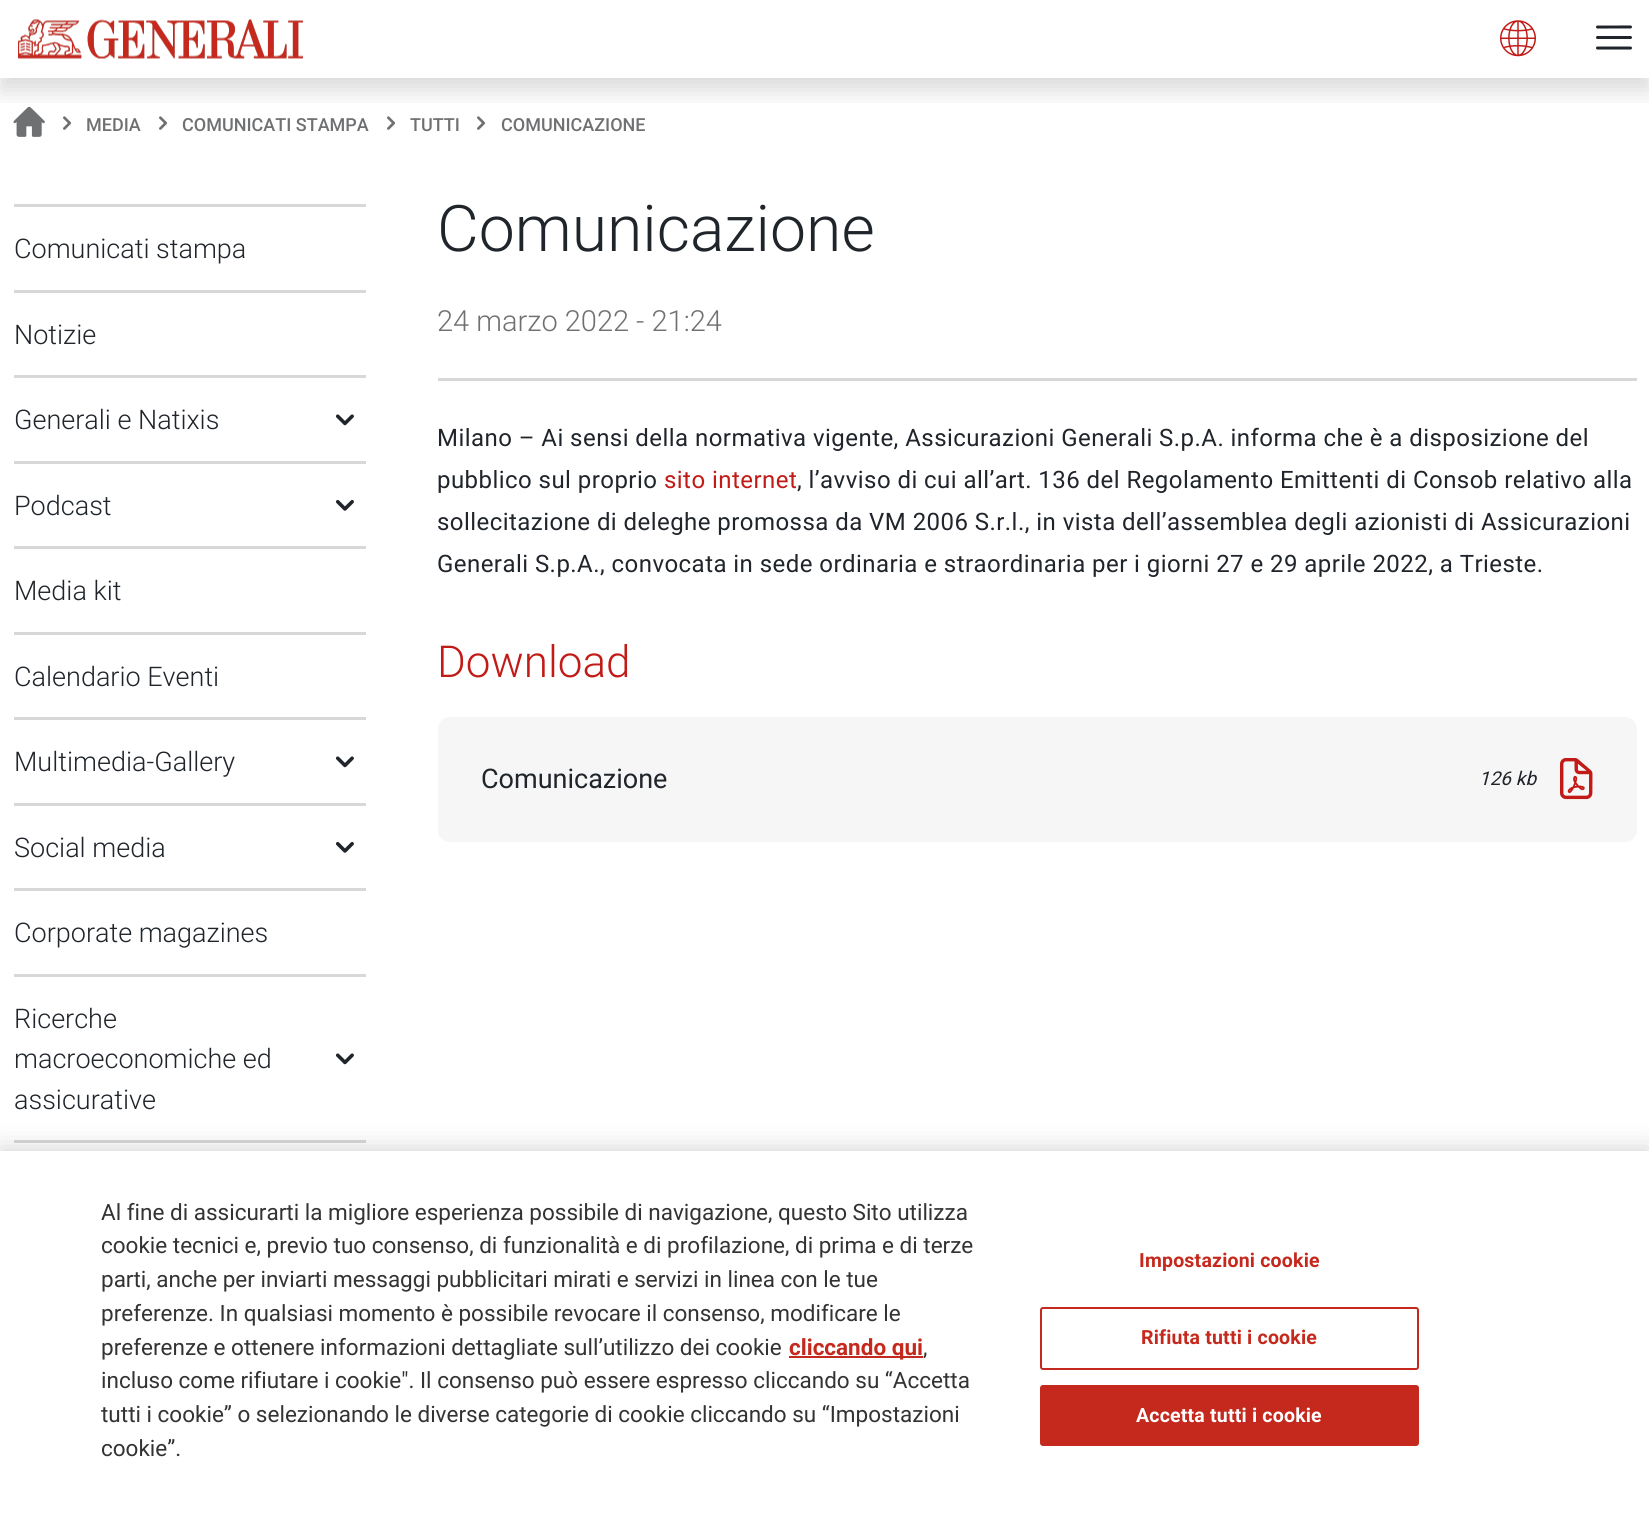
import math
import cairo

surface = cairo.ImageSurface(cairo.FORMAT_RGB24, 1649, 1517)
cr = cairo.Context(surface)
options = cairo.FontOptions()
options.set_hint_metrics(cairo.HINT_METRICS_OFF)
options.set_hint_style(cairo.HINT_STYLE_NONE)
cr.set_font_options(options)
cr.set_miter_limit(4)


def rgb(code):
    cr.set_source_rgb(*(v / 255 for v in bytes.fromhex(code[-6:])))


def tracked(x, y, s, letter, word):
    cr.move_to(x, y)
    for ch in s:
        cr.show_text(ch)
        cr.rel_move_to(letter + word * (ch == ' '), 0)


def rrect(x, y, w, h, r):
    cr.new_sub_path()
    for i, (u, v) in enumerate([(x + w - r, y + h - r), (x + r, y + h - r), (x + r, y + r), (x + w - r, y + r)]):
        cr.arc(u, v, r, i * math.pi / 2, (i + 1) * math.pi / 2)
    cr.close_path()


def soft_shadow(x, y, w, h, r, blur, alpha):
    cr.push_group_with_content(cairo.CONTENT_ALPHA)
    cr.set_operator(cairo.OPERATOR_SOURCE)
    for i in range(15, -16, -2):
        e = blur * i / 6
        if min(w, h) + 2 * e > 0:
            cr.set_source_rgba(0, 0, 0, alpha * math.erfc((i - 1) / 8.5) / 2)
            rrect(x - e, y - e, w + 2 * e, h + 2 * e, max(0, min(r + e + blur * .6, min(w, h) / 2 + e)))
            cr.fill()
    cr.mask(cr.pop_group())


def image(path, x, y, w, h):
    cr.save()
    cr.set_source_surface(cairo.ImageSurface.create_from_png(path), x, y)
    cr.rectangle(x, y, w, h)
    cr.fill()
    cr.restore()


rgb("#ffffff")
cr.paint()
image("img/4.png", 13, 106, 32, 31)
image("img/5.png", 63, 116, 9, 14)
image("img/5.png", 159, 116, 9, 14)
image("img/5.png", 387, 116, 9, 14)
image("img/5.png", 477, 116, 9, 14)
cr.save()
cr.rectangle(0, 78, 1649, 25)
cr.clip()
rgb("#000000")
soft_shadow(0, 12, 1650, 78, 0, 12, 0.15)
cr.restore()
image("img/1.png", 18, 19, 285, 40)
image("img/2.png", 1500, 20, 36, 37)
image("img/3.png", 1596, 25, 36, 25)
for x, y, w, h, color in [
    (14, 204, 352, 3, "#d8d8d8"),
    (14, 290, 352, 3, "#d8d8d8"),
    (14, 375, 352, 3, "#d8d8d8"),
    (14, 461, 352, 3, "#d8d8d8"),
]:
    rgb(color)
    cr.rectangle(x, y, w, h)
    cr.fill()
image("img/6.png", 335, 414, 19, 12)
cr.rectangle(14, 546, 352, 3)
cr.fill()
image("img/7.png", 335, 500, 19, 11)
for x, y, w, h, color in [
    (14, 632, 352, 3, "#d8d8d8"),
    (14, 717, 352, 3, "#d8d8d8"),
    (14, 803, 352, 3, "#d8d8d8"),
]:
    rgb(color)
    cr.rectangle(x, y, w, h)
    cr.fill()
image("img/6.png", 335, 756, 19, 12)
cr.rectangle(14, 888, 352, 3)
cr.fill()
image("img/7.png", 335, 842, 19, 11)
cr.rectangle(14, 974, 352, 3)
cr.fill()
cr.rectangle(14, 1140, 352, 3)
cr.fill()
image("img/6.png", 335, 1053, 19, 12)
cr.rectangle(438, 378, 1199, 3)
cr.fill()
rgb("#f6f6f6")
rrect(438, 717, 1199, 125, 12)
cr.fill()
image("img/8.png", 1560, 758, 33, 42)
rgb("#000000")
soft_shadow(0, 1151, 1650, 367, 0, 13.5, 0.2)
rgb("#ffffff")
cr.rectangle(0, 1151, 1649, 366)
cr.fill()
rgb("#c5281c")
cr.rectangle(789, 1356, 134, 2)
cr.fill()
rrect(1041, 1308, 377, 61, 2)
cr.stroke()
rrect(1041, 1386, 377, 59, 2)
cr.fill_preserve()
cr.stroke()
cr.select_font_face("Roboto Medium")
cr.set_font_size(18)
rgb("#6f7072")
for x, y, s in [
    (86, 131, "MEDIA"),
    (182, 131, "COMUNICATI STAMPA"),
    (410, 131, "TUTTI"),
    (501, 131, "COMUNICAZIONE"),
]:
    cr.move_to(x, y)
    cr.show_text(s)
cr.select_font_face("Roboto Light")
cr.set_font_size(27)
rgb("#20252b")
for x, y, s in [
    (14, 258, "Comunicati stampa"),
    (14, 344, "Notizie"),
    (14, 429, "Generali e Natixis"),
    (14, 515, "Podcast"),
    (14, 600, "Media kit"),
    (14, 686, "Calendario Eventi"),
    (14, 771, "Multimedia-Gallery"),
    (14, 857, "Social media"),
    (14, 942, "Corporate magazines"),
    (14, 1028, "Ricerche"),
    (14, 1068, "macroeconomiche ed"),
    (14, 1109, "assicurative"),
]:
    cr.move_to(x, y)
    cr.show_text(s)
cr.set_font_size(64.25)
cr.move_to(437, 251)
cr.show_text("Comunicazione")
cr.set_font_size(29)
rgb("#6f7072")
cr.move_to(437, 331)
cr.show_text("24 marzo 2022 - 21:24")
cr.select_font_face("Roboto")
cr.set_font_size(24)
rgb("#20252b")
tracked(437, 446, "Milano – Ai sensi della normativa vigente, Assicurazioni Generali S.p.A. informa che è a disposizione del", 0.45, 0)
tracked(437, 488, "pubblico sul proprio", 0.45, 0)
rgb("#c21b17")
tracked(664, 488, "sito internet", 0.45, 0)
rgb("#20252b")
for x, y, s in [
    (797, 488, ", l’avviso di cui all’art. 136 del Regolamento Emittenti di Consob relativo alla"),
    (437, 530, "sollecitazione di deleghe promossa da VM 2006 S.r.l., in vista dell’assemblea degli azionisti di Assicurazioni"),
    (437, 572, "Generali S.p.A., convocata in sede ordinaria e straordinaria per i giorni 27 e 29 aprile 2022, a Trieste."),
]:
    tracked(x, y, s, 0.45, 0)
cr.select_font_face("Roboto Light")
cr.set_font_size(44)
rgb("#c21b17")
cr.move_to(437, 677)
cr.show_text("Download")
cr.select_font_face("Roboto")
cr.set_font_size(27)
rgb("#20252b")
cr.move_to(481, 788)
cr.show_text("Comunicazione")
cr.select_font_face("Roboto", cairo.FONT_SLANT_ITALIC)
cr.set_font_size(19)
cr.move_to(1479, 785)
cr.show_text("126 kb")
cr.select_font_face("Roboto")
cr.set_font_size(22.5)
rgb("#333333")
for x, y, s in [
    (101, 1220, "Al fine di assicurarti la migliore esperienza possibile di navigazione, questo Sito utilizza"),
    (101, 1253, "cookie tecnici e, previo tuo consenso, di funzionalità e di profilazione, di prima e di terze"),
    (101, 1287, "parti, anche per inviarti messaggi pubblicitari mirati e servizi in linea con le tue"),
    (101, 1321, "preferenze. In qualsiasi momento è possibile revocare il consenso, modificare le"),
    (101, 1355, "preferenze e ottenere informazioni dettagliate sull’utilizzo dei cookie"),
]:
    cr.move_to(x, y)
    cr.show_text(s)
cr.select_font_face("Roboto", cairo.FONT_SLANT_NORMAL, cairo.FONT_WEIGHT_BOLD)
rgb("#c5281c")
cr.move_to(789, 1355)
cr.show_text("cliccando qui")
cr.select_font_face("Roboto")
rgb("#333333")
for x, y, s in [
    (923, 1355, ","),
    (101, 1388, "incluso come rifiutare i cookie\". Il consenso può essere espresso cliccando su “Accetta"),
    (101, 1422, "tutti i cookie” o selezionando le diverse categorie di cookie cliccando su “Impostazioni"),
    (101, 1456, "cookie”."),
]:
    cr.move_to(x, y)
    cr.show_text(s)
cr.select_font_face("Roboto", cairo.FONT_SLANT_NORMAL, cairo.FONT_WEIGHT_BOLD)
cr.set_font_size(19.5)
rgb("#c5281c")
tracked(1139, 1267, "Impostazioni cookie", 0.2, 0)
tracked(1141, 1344, "Rifiuta tutti i cookie", 0.2, 0)
rgb("#ffffff")
tracked(1136, 1422, "Accetta tutti i cookie", 0.2, 0)
surface.write_to_png("page.png")
